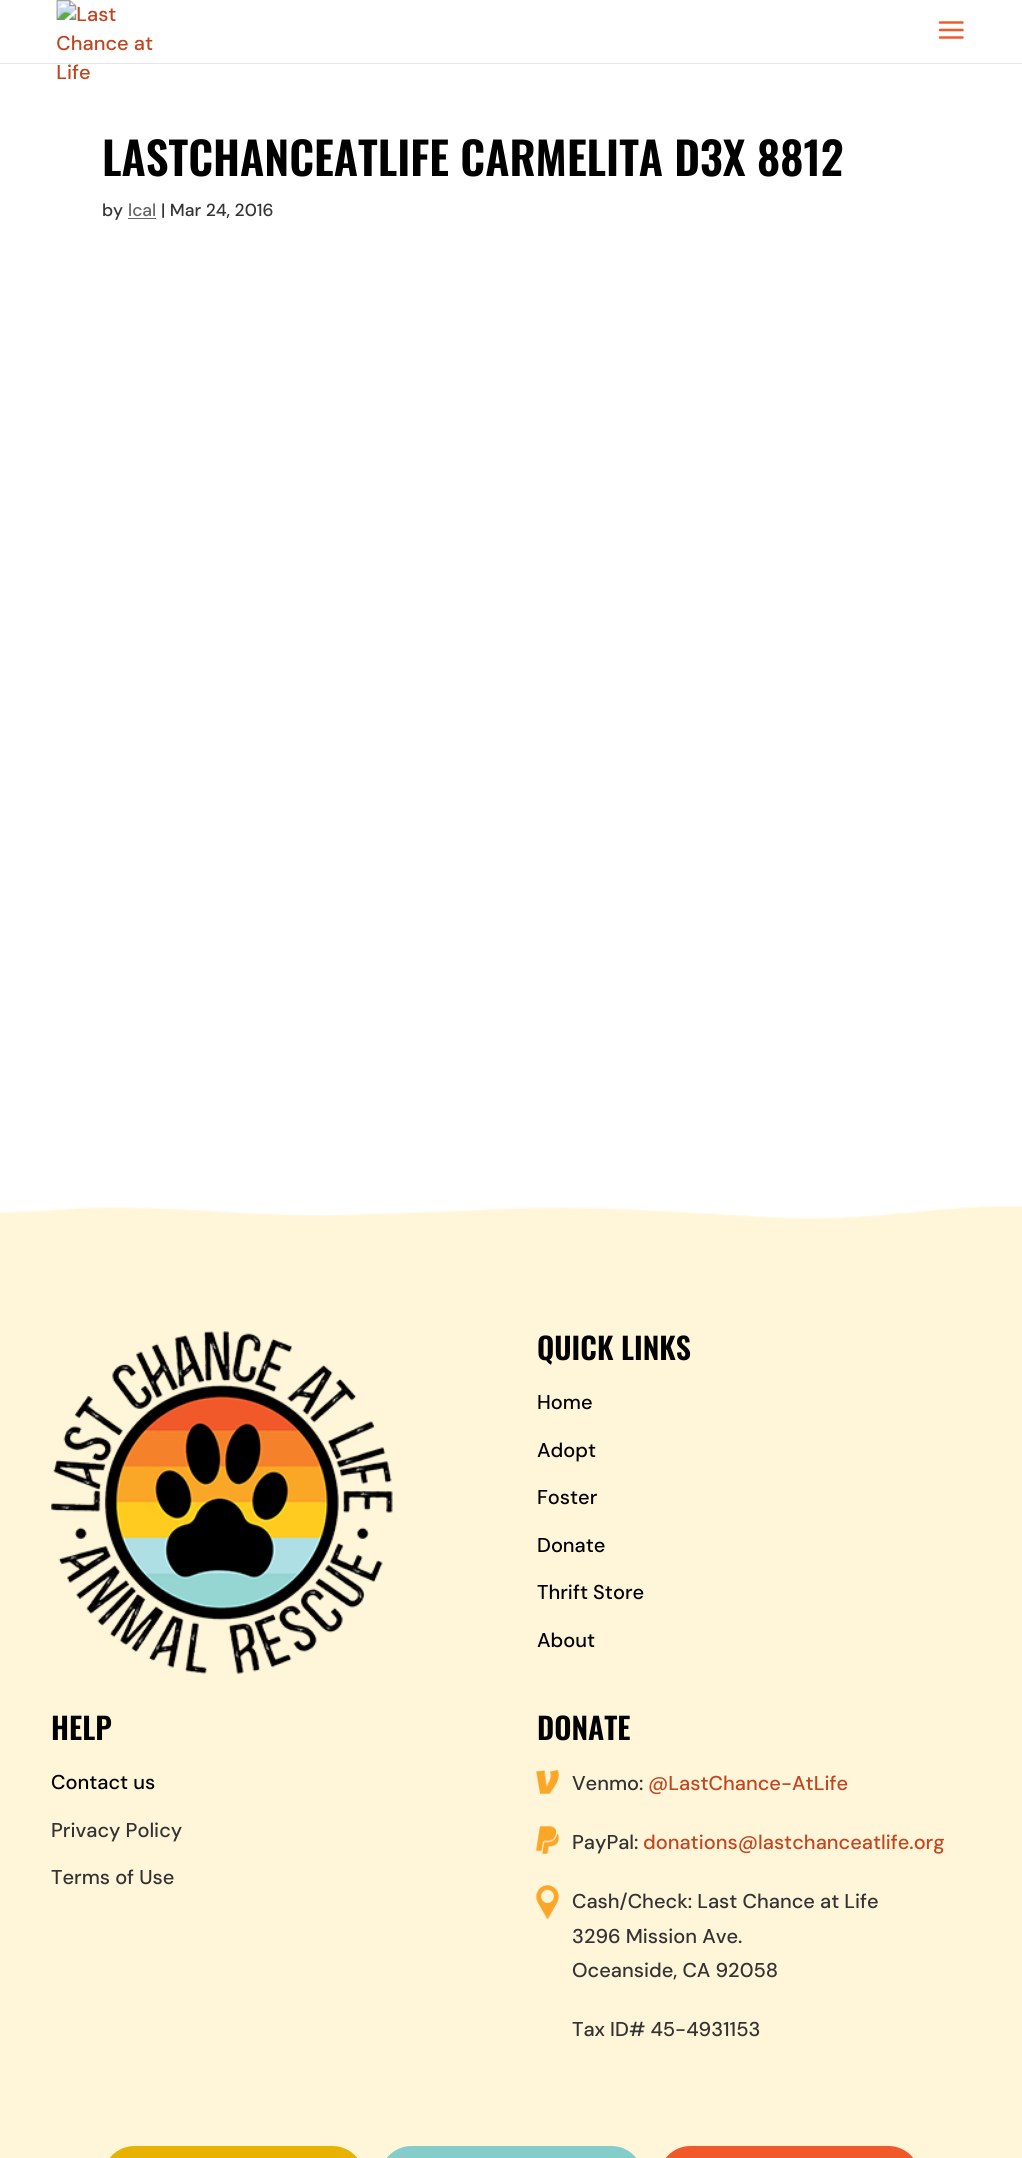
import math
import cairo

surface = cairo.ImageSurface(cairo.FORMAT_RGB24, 1022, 2158)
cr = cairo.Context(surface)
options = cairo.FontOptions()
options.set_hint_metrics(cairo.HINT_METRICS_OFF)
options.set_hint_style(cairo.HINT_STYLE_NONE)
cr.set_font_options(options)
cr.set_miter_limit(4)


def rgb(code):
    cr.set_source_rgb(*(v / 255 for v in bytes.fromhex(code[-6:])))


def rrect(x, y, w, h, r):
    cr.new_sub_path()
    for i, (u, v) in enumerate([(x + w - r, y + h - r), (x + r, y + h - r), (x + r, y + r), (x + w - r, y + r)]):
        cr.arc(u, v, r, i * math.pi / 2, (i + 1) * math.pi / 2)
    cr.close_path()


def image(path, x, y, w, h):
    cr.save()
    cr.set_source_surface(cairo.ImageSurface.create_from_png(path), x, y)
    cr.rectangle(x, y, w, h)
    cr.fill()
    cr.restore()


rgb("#ffffff")
cr.paint()
rgb("#e6e6e6")
cr.new_path()
cr.move_to(0, 62)
cr.line_to(0, 64)
cr.line_to(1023, 64)
cr.line_to(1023, 1)
cr.line_to(1022, 1)
cr.line_to(1022, 62)
cr.close_path()
cr.fill()
rgb("#ffffff")
cr.rectangle(0, 62, 1022, 1)
cr.fill()
image("img/1.png", 56, 0, 97, 80)
image("img/2.png", 938, 21, 26, 18)
rgb("#666666")
cr.rectangle(128, 218, 28, 1)
cr.fill()
image("img/3.png", 0, 1206, 1022, 25)
rgb("#fff5d9")
cr.rectangle(0, 1231, 1022, 927)
cr.fill()
image("img/4.png", 51, 1331, 342, 343)
image("img/5.png", 536, 1770, 23, 24)
image("img/6.png", 536, 1826, 23, 28)
image("img/7.png", 536, 1885, 23, 34)
rgb("#e7b202")
rrect(103, 2146, 261, 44, 31.5)
cr.fill()
rgb("#84cdca")
rrect(380, 2146, 263, 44, 31.5)
cr.fill()
rgb("#f1592a")
rrect(659, 2146, 261, 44, 31.5)
cr.fill()
cr.select_font_face("Oswald SemiBold")
cr.set_font_size(45)
rgb("#000000")
cr.move_to(102, 176)
cr.show_text("LASTCHANCEATLIFE CARMELITA D3X 8812")
cr.select_font_face("DM Sans Medium")
cr.set_font_size(17.5)
rgb("#333333")
cr.move_to(102, 216)
cr.show_text("by")
rgb("#666666")
cr.move_to(128, 216)
cr.show_text("lcal")
rgb("#333333")
cr.move_to(161, 216)
cr.show_text("| Mar 24, 2016")
cr.select_font_face("Oswald SemiBold")
cr.set_font_size(30)
rgb("#000000")
cr.move_to(537, 1360)
cr.show_text("QUICK LINKS")
cr.select_font_face("DM Sans Medium")
cr.set_font_size(20)
for x, y, s in [
    (537, 1409, "Home"),
    (537, 1457, "Adopt"),
    (537, 1504, "Foster"),
    (537, 1552, "Donate"),
    (537, 1599, "Thrift Store"),
    (537, 1647, "About"),
]:
    cr.move_to(x, y)
    cr.show_text(s)
cr.select_font_face("Oswald SemiBold")
cr.set_font_size(30)
cr.move_to(51, 1740)
cr.show_text("HELP")
cr.select_font_face("DM Sans Medium")
cr.set_font_size(20)
cr.move_to(51, 1789)
cr.show_text("Contact us")
rgb("#333333")
cr.move_to(51, 1837)
cr.show_text("Privacy Policy")
cr.move_to(51, 1884)
cr.show_text("Terms of Use")
cr.select_font_face("Oswald SemiBold")
cr.set_font_size(30)
rgb("#000000")
cr.move_to(537, 1740)
cr.show_text("DONATE")
cr.select_font_face("DM Sans Medium")
cr.set_font_size(20)
rgb("#333333")
cr.move_to(572, 1790)
cr.show_text("Venmo:")
rgb("#c1451f")
cr.move_to(648, 1790)
cr.show_text("@LastChance-AtLife")
rgb("#333333")
cr.move_to(572, 1849)
cr.show_text("PayPal:")
rgb("#c1451f")
cr.move_to(643, 1849)
cr.show_text("donations@lastchanceatlife.org")
rgb("#333333")
for x, y, s in [
    (572, 1908, "Cash/Check: Last Chance at Life"),
    (572, 1943, "3296 Mission Ave."),
    (572, 1977, "Oceanside, CA 92058"),
    (572, 2036, "Tax ID# 45-4931153"),
]:
    cr.move_to(x, y)
    cr.show_text(s)
surface.write_to_png("page.png")
